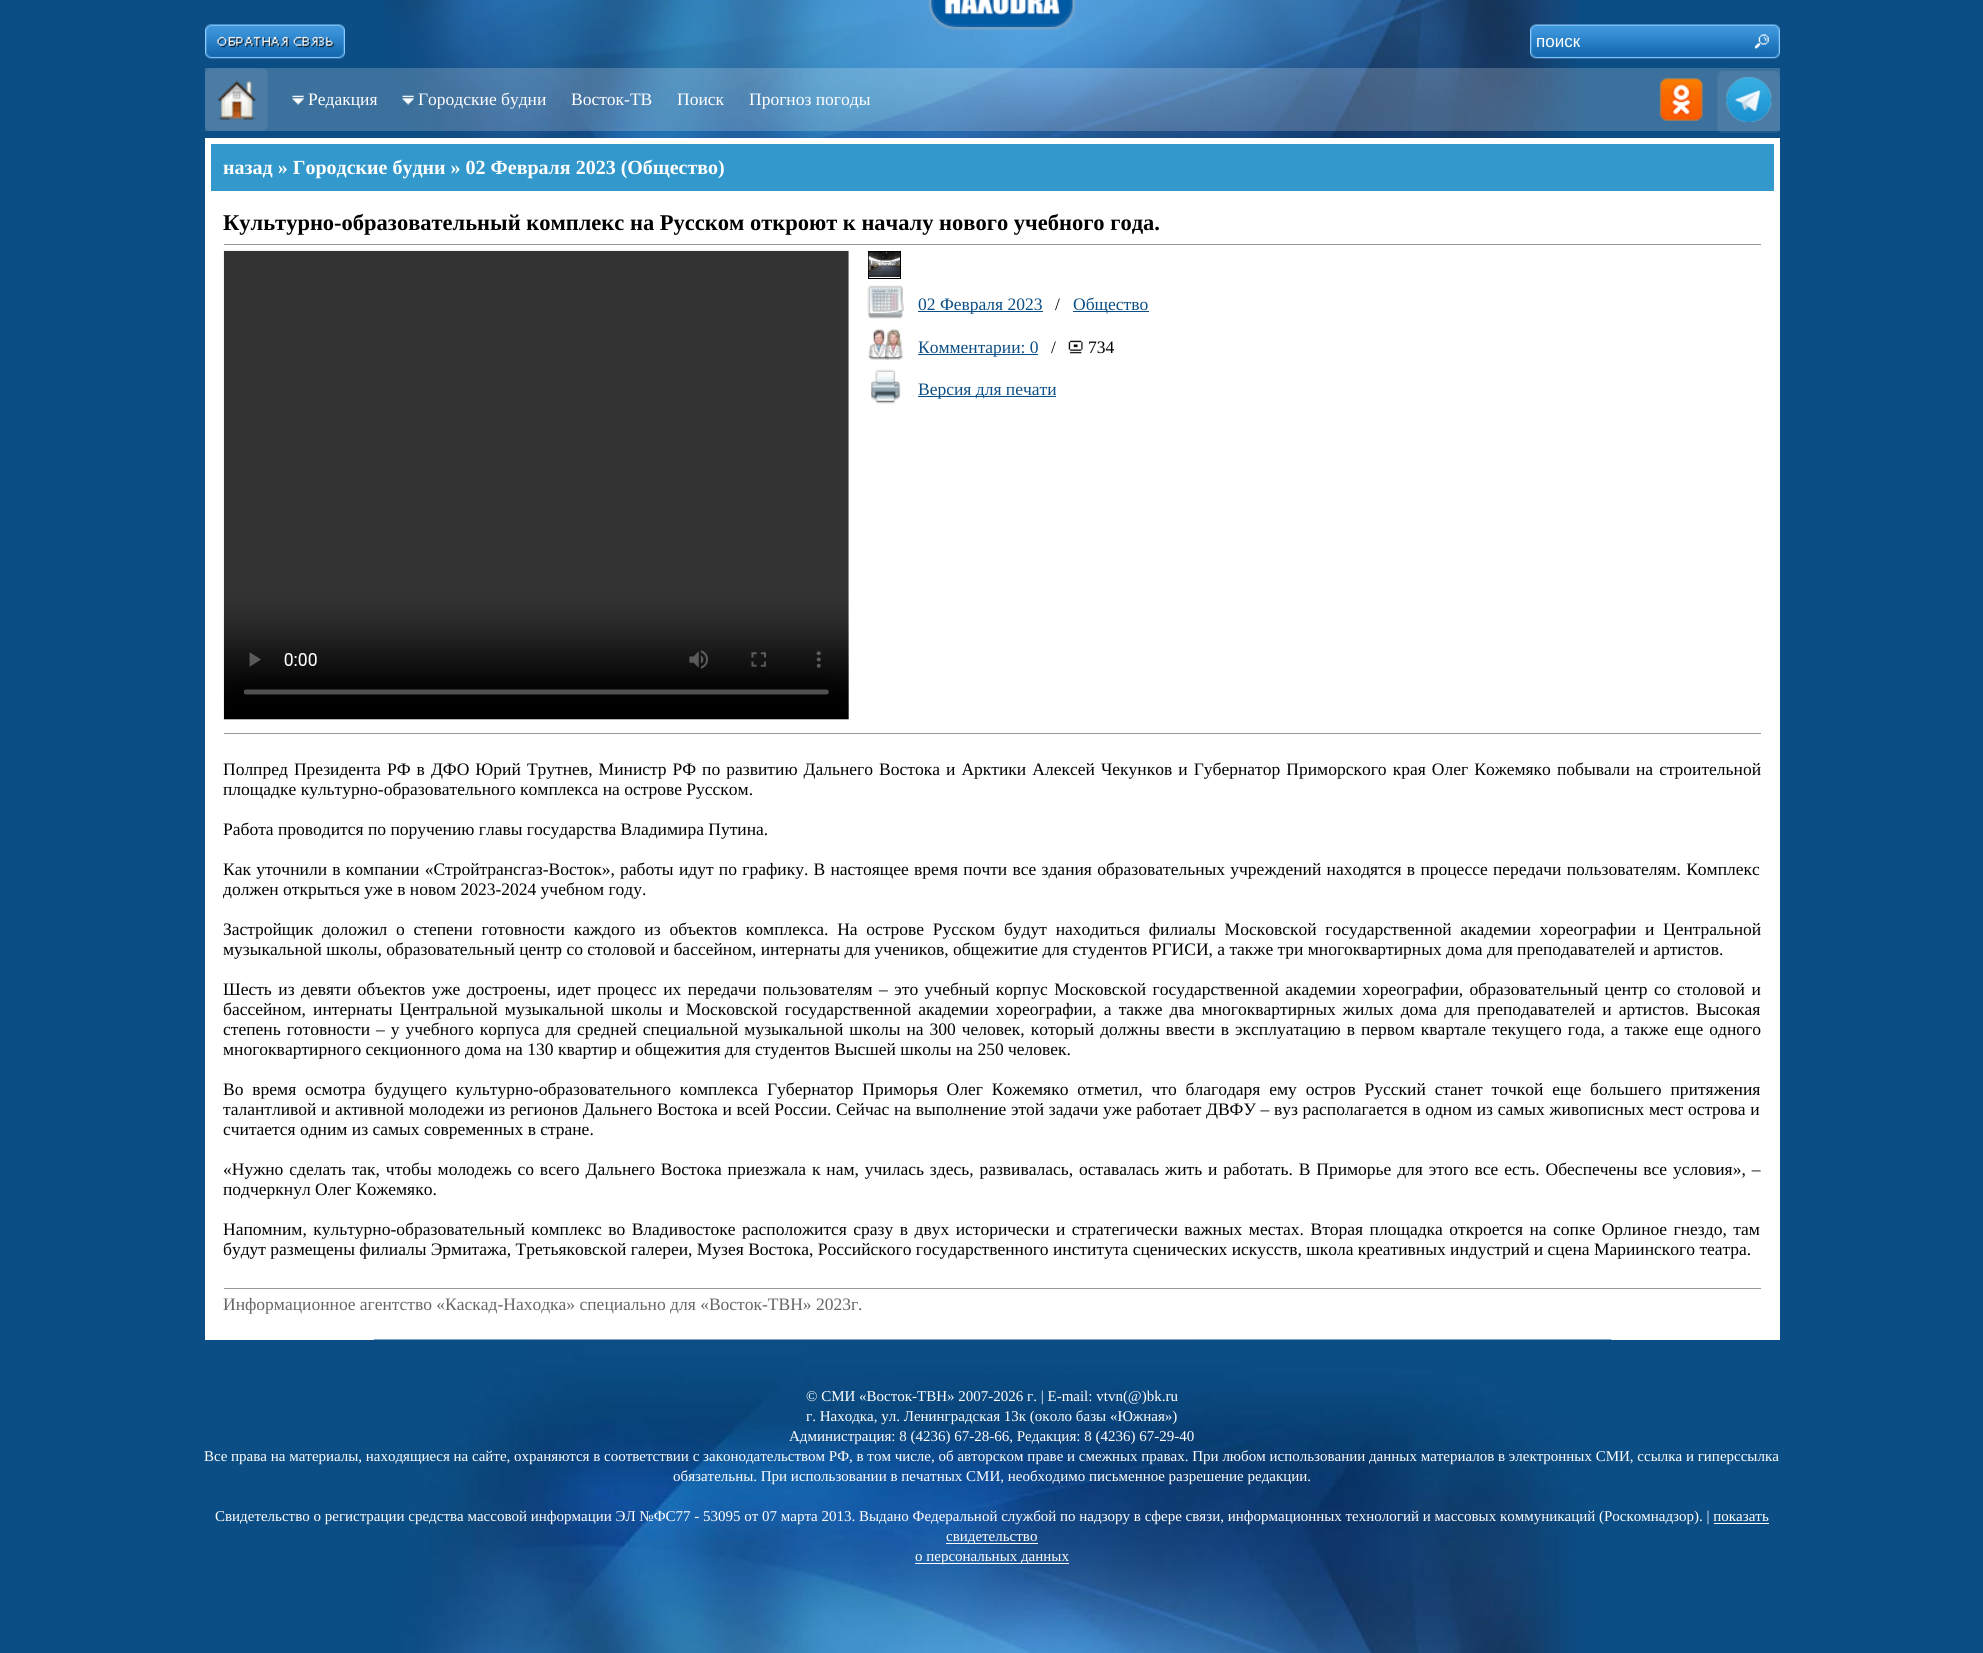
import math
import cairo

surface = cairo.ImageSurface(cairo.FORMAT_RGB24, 1983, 1653)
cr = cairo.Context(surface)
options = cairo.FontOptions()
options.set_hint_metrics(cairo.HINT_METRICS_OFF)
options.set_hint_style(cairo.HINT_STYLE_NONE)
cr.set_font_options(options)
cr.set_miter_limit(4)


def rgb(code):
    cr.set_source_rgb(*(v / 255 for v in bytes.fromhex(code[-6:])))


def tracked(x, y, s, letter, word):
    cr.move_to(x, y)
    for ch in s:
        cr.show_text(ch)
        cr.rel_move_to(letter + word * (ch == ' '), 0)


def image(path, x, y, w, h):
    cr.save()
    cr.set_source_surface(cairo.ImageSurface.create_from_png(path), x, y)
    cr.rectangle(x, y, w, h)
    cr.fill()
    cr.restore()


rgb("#0b4e85")
cr.paint()
image("img/1.png", 384, 0, 1194, 138)
image("img/2.png", 928, 0, 148, 31)
image("img/3.png", 205, 24, 140, 35)
image("img/4.png", 1530, 24, 250, 35)
cr.set_source_rgba(1, 1, 1, 0.2)
cr.rectangle(205, 68, 1575, 63)
cr.fill()
image("img/5.png", 205, 68, 63, 63)
image("img/6.png", 217, 80, 40, 40)
image("img/7.png", 292, 95, 12, 10)
image("img/8.png", 402, 95, 12, 10)
image("img/9.png", 1717, 71, 63, 62)
image("img/10.png", 1659, 78, 44, 43)
image("img/11.png", 1726, 77, 46, 46)
for x, y, w, h, color in [
    (205, 138, 1575, 1202, "#ffffff"),
    (211, 144, 1563, 47, "#3399cc"),
    (224, 244, 1537, 1, "#999999"),
]:
    rgb(color)
    cr.rectangle(x, y, w, h)
    cr.fill()
image("img/12.png", 223, 250, 626, 470)
cr.rectangle(868.5, 251.5, 32, 27)
rgb("#000000")
cr.set_line_width(1)
cr.stroke()
image("img/13.png", 868, 252, 32, 25)
image("img/14.png", 867, 285, 37, 34)
rgb("#0b4e85")
cr.rectangle(918, 311, 125, 1)
cr.fill()
cr.rectangle(1073, 311, 76, 1)
cr.fill()
image("img/15.png", 868, 329, 35, 31)
cr.rectangle(918, 354, 120, 1)
cr.fill()
image("img/16.png", 1068, 340, 15, 14)
image("img/17.png", 871, 369, 30, 35)
for x, y, w, h, color in [
    (918, 396, 138, 1, "#0b4e85"),
    (224, 733, 1537, 1, "#999999"),
    (224, 1288, 1537, 1, "#999999"),
]:
    rgb(color)
    cr.rectangle(x, y, w, h)
    cr.fill()
image("img/18.png", 373, 1339, 1239, 314)
for x, y, w, h, color in [
    (1714, 1523, 55, 1, "#ffffff"),
    (946, 1543, 92, 1, "#ffffff"),
    (915, 1563, 154, 1, "#ffffff"),
]:
    rgb(color)
    cr.rectangle(x, y, w, h)
    cr.fill()
cr.select_font_face("Liberation Sans")
cr.set_font_size(17)
cr.move_to(1536, 47)
cr.show_text("поиск")
cr.select_font_face("Liberation Serif")
cr.set_font_size(17.5)
for x, y, s in [
    (308, 105, "Редакция"),
    (418, 105, "Городские будни"),
    (571, 105, "Восток-ТВ"),
    (677, 105, "Поиск"),
    (749, 105, "Прогноз погоды"),
]:
    cr.move_to(x, y)
    cr.show_text(s)
cr.select_font_face("Liberation Serif", cairo.FONT_SLANT_NORMAL, cairo.FONT_WEIGHT_BOLD)
cr.set_font_size(20)
cr.move_to(223, 174)
cr.show_text("назад » Городские будни » 02 Февраля 2023 (Общество)")
cr.set_font_size(22.5)
rgb("#000000")
cr.move_to(223, 230)
cr.show_text("Культурно-образовательный комплекс на Русском откроют к началу нового учебного года.")
cr.select_font_face("Liberation Serif")
cr.set_font_size(17.5)
rgb("#0b4e85")
cr.move_to(918, 310)
cr.show_text("02 Февраля 2023")
rgb("#000000")
cr.move_to(1055, 310)
cr.show_text("/")
rgb("#0b4e85")
cr.move_to(1073, 310)
cr.show_text("Общество")
cr.move_to(918, 353)
cr.show_text("Комментарии: 0")
rgb("#000000")
cr.move_to(1051, 353)
cr.show_text("/")
cr.move_to(1088, 353)
cr.show_text("734")
rgb("#0b4e85")
cr.move_to(918, 395)
cr.show_text("Версия для печати")
rgb("#000000")
tracked(223, 775, "Полпред Президента РФ в ДФО Юрий Трутнев, Министр РФ по развитию Дальнего Востока и Арктики Алексей Чекунков и Губернатор Приморского края Олег Кожемяко побывали на строительной", 0, 1.7)
cr.move_to(223, 795)
cr.show_text("площадке культурно-образовательного комплекса на острове Русском.")
cr.move_to(223, 835)
cr.show_text("Работа проводится по поручению главы государства Владимира Путина.")
tracked(223, 875, "Как уточнили в компании «Стройтрансгаз-Восток», работы идут по графику. В настоящее время почти все здания образовательных учреждений находятся в процессе передачи пользователям. Комплекс", 0, 0.9)
cr.move_to(223, 895)
cr.show_text("должен открыться уже в новом 2023-2024 учебном году.")
tracked(223, 935, "Застройщик доложил о степени готовности каждого из объектов комплекса. На острове Русском будут находиться филиалы Московской государственной академии хореографии и Центральной", 0, 4.4)
cr.move_to(223, 955)
cr.show_text("музыкальной школы, образовательный центр со столовой и бассейном, интернаты для учеников, общежитие для студентов РГИСИ, а также три многоквартирных дома для преподавателей и артистов.")
tracked(223, 995, "Шесть из девяти объектов уже достроены, идет процесс их передачи пользователям – это учебный корпус Московской государственной академии хореографии, образовательный центр со столовой и", 0, 2.1)
tracked(223, 1015, "бассейном, интернаты Центральной музыкальной школы и Московской государственной академии хореографии, а также два многоквартирных жилых дома для преподавателей и артистов. Высокая", 0, 2.75)
tracked(223, 1035, "степень готовности – у учебного корпуса для средней специальной музыкальной школы на 300 человек, который должны ввести в эксплуатацию в первом квартале текущего года, а также еще одного", 0, 1.6)
cr.move_to(223, 1055)
cr.show_text("многоквартирного секционного дома на 130 квартир и общежития для студентов Высшей школы на 250 человек.")
tracked(223, 1095, "Во время осмотра будущего культурно-образовательного комплекса Губернатор Приморья Олег Кожемяко отметил, что благодаря ему остров Русский станет точкой еще большего притяжения", 0, 4.5)
tracked(223, 1115, "талантливой и активной молодежи из регионов Дальнего Востока и всей России. Сейчас на выполнение этой задачи уже работает ДВФУ – вуз располагается в одном из самых живописных мест острова и", 0, 0.3)
cr.move_to(223, 1135)
cr.show_text("считается одним из самых современных в стране.")
tracked(223, 1175, "«Нужно сделать так, чтобы молодежь со всего Дальнего Востока приезжала к нам, училась здесь, развивалась, оставалась жить и работать. В Приморье для этого все есть. Обеспечены все условия», –", 0, 1.5)
cr.move_to(223, 1195)
cr.show_text("подчеркнул Олег Кожемяко.")
tracked(223, 1235, "Напомним, культурно-образовательный комплекс во Владивостоке расположится сразу в двух исторически и стратегически важных местах. Вторая площадка откроется на сопке Орлиное гнездо, там", 0, 2.1)
cr.move_to(223, 1255)
cr.show_text("будут размещены филиалы Эрмитажа, Третьяковской галереи, Музея Востока, Российского государственного института сценических искусств, школа креативных индустрий и сцена Мариинского театра.")
rgb("#666666")
cr.move_to(223, 1310)
cr.show_text("Информационное агентство «Каскад-Находка» специально для «Восток-ТВН» 2023г.")
cr.set_font_size(15)
rgb("#ffffff")
for x, y, s in [
    (806, 1401, "© СМИ «Восток-ТВН» 2007-2026 г. | E-mail: vtvn(@)bk.ru"),
    (806, 1421, "г. Находка, ул. Ленинградская 13к (около базы «Южная»)"),
    (789, 1441, "Администрация: 8 (4236) 67-28-66, Редакция: 8 (4236) 67-29-40"),
    (204, 1461, "Все права на материалы, находящиеся на сайте, охраняются в соответствии с законодательством РФ, в том числе, об авторском праве и смежных правах. При любом использовании данных материалов в электронных СМИ, ссылка и гиперссылка"),
    (673, 1481, "обязательны. При использовании в печатных СМИ, необходимо письменное разрешение редакции."),
    (215, 1521, "Свидетельство о регистрации средства массовой информации ЭЛ №ФС77 - 53095 от 07 марта 2013. Выдано Федеральной службой по надзору в сфере связи, информационных технологий и массовых коммуникаций (Роскомнадзор). | показать"),
    (946, 1541, "свидетельство"),
    (915, 1561, "о персональных данных"),
]:
    cr.move_to(x, y)
    cr.show_text(s)
surface.write_to_png("page.png")
